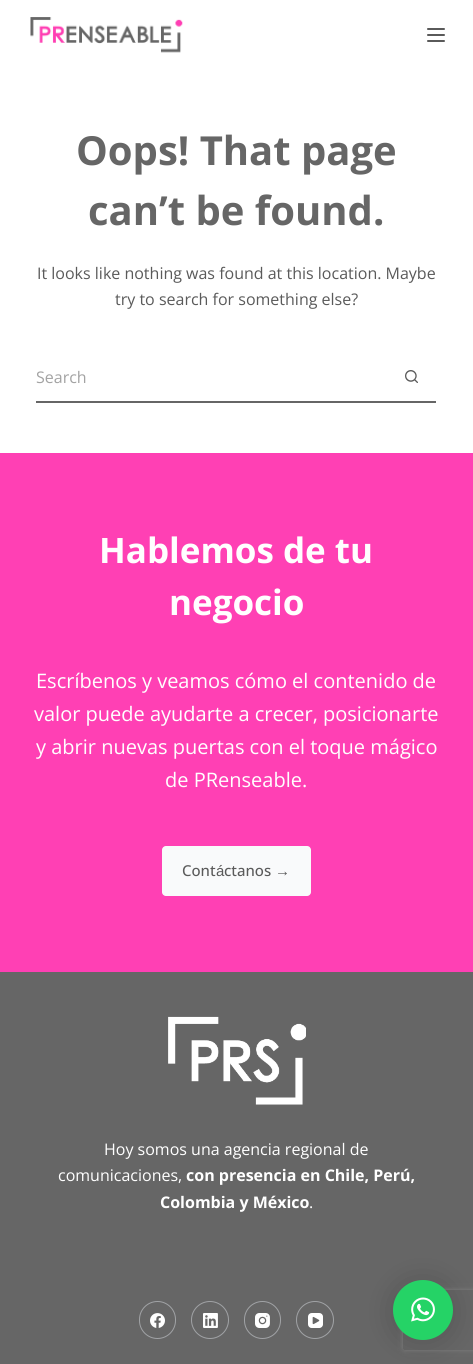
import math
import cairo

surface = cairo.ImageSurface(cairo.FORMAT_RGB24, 473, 1364)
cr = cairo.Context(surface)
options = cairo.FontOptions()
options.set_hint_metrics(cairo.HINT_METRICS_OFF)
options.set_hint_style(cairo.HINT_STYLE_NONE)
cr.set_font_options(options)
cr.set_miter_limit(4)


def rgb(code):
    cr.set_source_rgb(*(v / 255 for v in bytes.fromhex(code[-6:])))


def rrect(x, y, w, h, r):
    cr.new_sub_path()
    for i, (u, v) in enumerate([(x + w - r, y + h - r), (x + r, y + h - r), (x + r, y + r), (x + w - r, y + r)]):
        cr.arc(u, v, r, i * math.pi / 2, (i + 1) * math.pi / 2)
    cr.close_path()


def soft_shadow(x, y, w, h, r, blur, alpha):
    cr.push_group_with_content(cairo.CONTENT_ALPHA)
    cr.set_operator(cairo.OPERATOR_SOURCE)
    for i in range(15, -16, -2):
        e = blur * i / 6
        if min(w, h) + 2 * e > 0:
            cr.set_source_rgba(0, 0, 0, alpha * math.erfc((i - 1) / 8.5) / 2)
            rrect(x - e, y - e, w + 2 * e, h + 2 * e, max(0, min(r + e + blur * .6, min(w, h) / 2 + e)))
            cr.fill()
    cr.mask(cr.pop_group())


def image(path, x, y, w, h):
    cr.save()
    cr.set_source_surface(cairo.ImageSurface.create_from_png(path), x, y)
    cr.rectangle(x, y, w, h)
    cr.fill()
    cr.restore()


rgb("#ffffff")
cr.paint()
image("img/1.png", 30, 17, 153, 36)
rgb("#5a5a5a")
rrect(427, 28, 18, 2, 1)
cr.fill()
rrect(427, 34, 18, 2, 1)
cr.fill()
rrect(427, 40, 18, 2, 1)
cr.fill()
rgb("#666666")
cr.rectangle(36, 401, 400, 2)
cr.fill()
image("img/2.png", 405, 370, 13, 13)
rgb("#ff40b4")
cr.rectangle(0, 453, 473, 519)
cr.fill()
rgb("#f9fafb")
rrect(162, 846, 149, 50, 4)
cr.fill()
rgb("#666666")
cr.rectangle(0, 972, 473, 392)
cr.fill()
image("img/3.png", 168, 1016, 138, 89)
rrect(139.5, 1301.5, 36, 37, 18)
rgb("#a0a2a5")
cr.set_line_width(1)
cr.stroke()
image("img/4.png", 150, 1313, 15, 15)
cr.arc(210, 1320, 18.5, 0, 2 * math.pi)
cr.stroke()
image("img/5.png", 203, 1313, 15, 15)
rrect(244.5, 1301.5, 36, 37, 18)
cr.stroke()
image("img/6.png", 255, 1313, 15, 15)
cr.arc(315, 1320, 18.5, 0, 2 * math.pi)
cr.stroke()
image("img/7.png", 308, 1313, 15, 15)
rgb("#000000")
soft_shadow(393, 1282, 60, 60, 30, 16, 0.16)
cr.save()
cr.set_fill_rule(cairo.FILL_RULE_EVEN_ODD)
cr.new_path()
cr.move_to(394, 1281)
cr.line_to(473, 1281)
cr.line_to(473, 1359)
cr.line_to(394, 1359)
cr.close_path()
cr.move_to(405, 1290)
cr.line_to(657, 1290)
cr.curve_to(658, 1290, 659, 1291, 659, 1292)
cr.line_to(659, 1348)
cr.curve_to(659, 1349, 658, 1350, 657, 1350)
cr.line_to(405, 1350)
cr.curve_to(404, 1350, 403, 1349, 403, 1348)
cr.line_to(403, 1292)
cr.curve_to(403, 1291, 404, 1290, 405, 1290)
cr.close_path()
cr.clip()
rgb("#808080")
soft_shadow(403, 1290, 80, 60, 2, 2.5, 1)
cr.restore()
rgb("#25d366")
cr.arc(423, 1310, 30, 0, 2 * math.pi)
cr.fill()
image("img/8.png", 411, 1297, 24, 25)
cr.select_font_face("Open Sans", cairo.FONT_SLANT_NORMAL, cairo.FONT_WEIGHT_BOLD)
cr.set_font_size(40)
rgb("#666666")
cr.move_to(76, 165)
cr.show_text("Oops! That page")
cr.move_to(88, 225)
cr.show_text("can’t be found.")
cr.select_font_face("Open Sans")
cr.set_font_size(16)
rgb("#5a5a5a")
cr.move_to(37, 279)
cr.show_text("It looks like nothing was found at this location. Maybe")
cr.move_to(115, 305)
cr.show_text("try to search for something else?")
rgb("#a3a3a3")
cr.move_to(36, 383)
cr.show_text("Search")
cr.select_font_face("Open Sans", cairo.FONT_SLANT_NORMAL, cairo.FONT_WEIGHT_BOLD)
cr.set_font_size(35)
rgb("#ffffff")
cr.move_to(99, 563)
cr.show_text("Hablemos de tu")
cr.move_to(169, 615)
cr.show_text("negocio")
cr.select_font_face("Open Sans")
cr.set_font_size(20)
for x, y, s in [
    (36, 688, "Escríbenos y veamos cómo el contenido de"),
    (34, 721, "valor puede ayudarte a crecer, posicionarte"),
    (36, 754, "y abrir nuevas puertas con el toque mágico"),
    (165, 787, "de PRenseable."),
]:
    cr.move_to(x, y)
    cr.show_text(s)
cr.select_font_face("Open Sans Medium")
cr.set_font_size(15)
rgb("#5a5a5a")
cr.move_to(182, 876)
cr.show_text("Cont")
cr.select_font_face("Liberation Sans")
cr.move_to(216, 876)
cr.show_text("á")
cr.select_font_face("Open Sans Medium")
cr.move_to(224, 876)
cr.show_text("ctanos")
cr.select_font_face("Liberation Sans")
cr.move_to(275, 876)
cr.show_text("→")
cr.select_font_face("Open Sans")
cr.set_font_size(16)
rgb("#ffffff")
cr.move_to(104, 1155)
cr.show_text("Hoy somos una agencia regional de")
cr.move_to(58, 1181)
cr.show_text("comunicaciones,")
cr.select_font_face("Open Sans", cairo.FONT_SLANT_NORMAL, cairo.FONT_WEIGHT_BOLD)
cr.move_to(186, 1181)
cr.show_text("con presencia en Chile, Perú,")
cr.move_to(160, 1208)
cr.show_text("Colombia y México")
cr.select_font_face("Open Sans")
cr.move_to(309, 1208)
cr.show_text(".")
surface.write_to_png("page.png")
